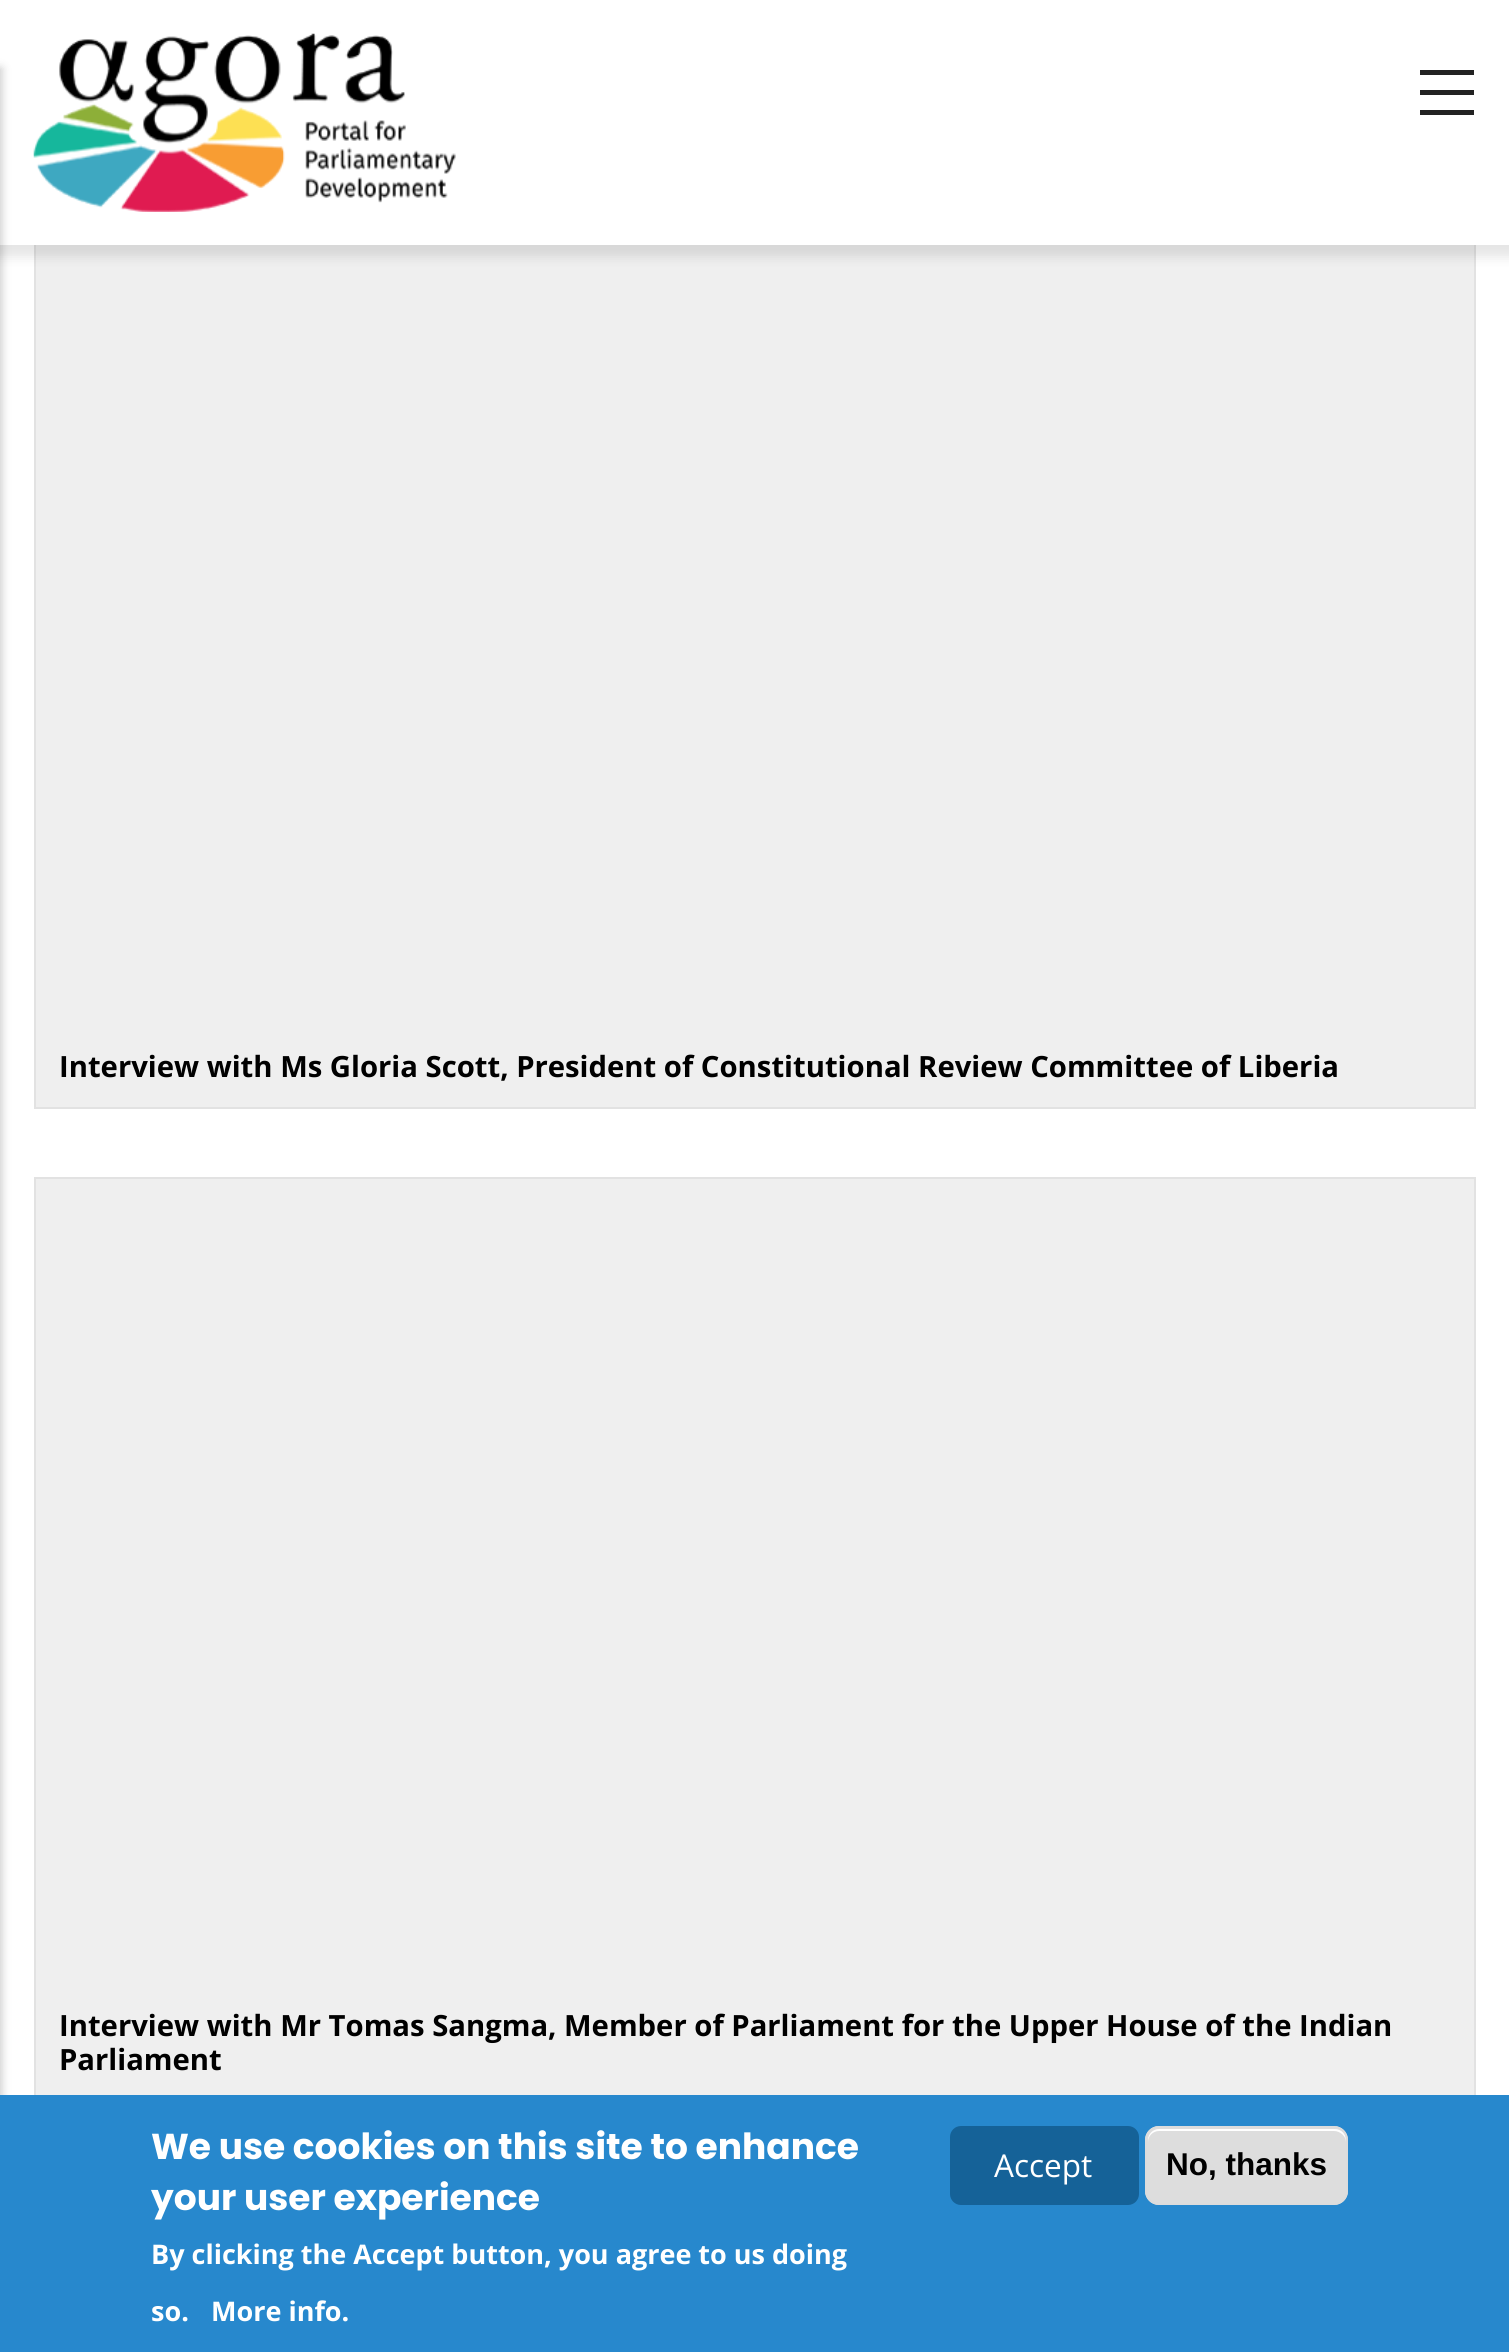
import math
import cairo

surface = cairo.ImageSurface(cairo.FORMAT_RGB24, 1509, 2352)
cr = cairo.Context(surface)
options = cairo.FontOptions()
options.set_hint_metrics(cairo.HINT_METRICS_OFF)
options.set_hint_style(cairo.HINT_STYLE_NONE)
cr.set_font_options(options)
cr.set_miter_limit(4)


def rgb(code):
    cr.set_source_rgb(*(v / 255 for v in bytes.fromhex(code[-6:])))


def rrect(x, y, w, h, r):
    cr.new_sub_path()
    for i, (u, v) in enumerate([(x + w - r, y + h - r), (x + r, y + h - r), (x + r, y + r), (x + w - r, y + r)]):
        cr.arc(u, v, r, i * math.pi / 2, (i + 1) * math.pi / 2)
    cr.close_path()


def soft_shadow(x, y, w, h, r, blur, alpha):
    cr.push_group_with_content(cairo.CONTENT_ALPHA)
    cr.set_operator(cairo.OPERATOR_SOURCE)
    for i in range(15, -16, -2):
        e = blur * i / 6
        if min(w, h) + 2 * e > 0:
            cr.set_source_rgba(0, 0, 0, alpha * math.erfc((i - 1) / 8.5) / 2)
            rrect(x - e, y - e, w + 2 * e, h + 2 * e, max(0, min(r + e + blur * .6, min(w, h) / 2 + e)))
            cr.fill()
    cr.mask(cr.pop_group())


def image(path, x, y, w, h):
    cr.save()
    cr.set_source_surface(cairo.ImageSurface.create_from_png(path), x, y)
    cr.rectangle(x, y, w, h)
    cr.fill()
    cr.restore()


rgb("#ffffff")
cr.paint()
rgb("#efefef")
cr.rectangle(36, 245, 1438, 862)
cr.fill()
cr.rectangle(35, 217, 1440, 891)
rgb("#e2e2e2")
cr.stroke()
rgb("#000000")
soft_shadow(-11, -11, 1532, 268, 0, 5.5, 0.1)
rgb("#ffffff")
cr.rectangle(0, 0, 1509, 245)
cr.fill()
image("img/1.png", 33, 33, 423, 179)
rgb("#000000")
soft_shadow(-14, 68, 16, 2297, 0, 4.5, 0.2)
for x, y, w, h, color in [
    (1420, 70, 54, 5, "#222222"),
    (1420, 90, 54, 5, "#222222"),
    (1420, 110, 54, 5, "#222222"),
    (36, 1179, 1438, 916, "#efefef"),
]:
    rgb(color)
    cr.rectangle(x, y, w, h)
    cr.fill()
cr.rectangle(35, 1178, 1440, 923)
rgb("#e2e2e2")
cr.stroke()
rgb("#2788cd")
cr.rectangle(0, 2095, 1509, 257)
cr.fill()
rgb("#156298")
rrect(950, 2126, 189, 79, 11)
cr.fill()
rgb("#dddddd")
rrect(1145, 2126, 203, 79, 14)
cr.fill()
rgb("#ffffff")
cr.new_path()
cr.move_to(1159, 2131)
cr.line_to(1334, 2131)
cr.curve_to(1340, 2131, 1346, 2136, 1346, 2142)
cr.line_to(1346, 2140)
cr.curve_to(1346, 2134, 1341, 2129, 1335, 2129)
cr.line_to(1159, 2129)
cr.curve_to(1153, 2129, 1148, 2134, 1148, 2140)
cr.line_to(1148, 2142)
cr.curve_to(1148, 2136, 1153, 2131, 1159, 2131)
cr.close_path()
cr.fill()
rrect(1146, 2127, 201, 77, 13)
rgb("#dcdcdc")
cr.stroke()
cr.select_font_face("Open Sans", cairo.FONT_SLANT_NORMAL, cairo.FONT_WEIGHT_BOLD)
cr.set_font_size(29.25)
rgb("#000000")
for x, y, s in [
    (59, 1077, "Interview with Ms Gloria Scott, President of Constitutional Review Committee of Liberia"),
    (59, 2036, "Interview with Mr Tomas Sangma, Member of Parliament for the Upper House of the Indian"),
    (59, 2070, "Parliament"),
]:
    cr.move_to(x, y)
    cr.show_text(s)
cr.select_font_face("Poppins", cairo.FONT_SLANT_NORMAL, cairo.FONT_WEIGHT_BOLD)
cr.set_font_size(36)
rgb("#ffffff")
cr.move_to(151, 2159)
cr.show_text("We use cookies on this site to enhance")
cr.move_to(151, 2210)
cr.show_text("your user experience")
cr.select_font_face("Open Sans", cairo.FONT_SLANT_NORMAL, cairo.FONT_WEIGHT_BOLD)
cr.set_font_size(27)
for x, y, s in [
    (151, 2264, "By clicking the Accept button, you agree to us doing"),
    (151, 2321, "so."),
    (211, 2321, "More info."),
]:
    cr.move_to(x, y)
    cr.show_text(s)
cr.select_font_face("Open Sans")
cr.set_font_size(31.5)
cr.move_to(994, 2177)
cr.show_text("Accept")
cr.select_font_face("Liberation Sans", cairo.FONT_SLANT_NORMAL, cairo.FONT_WEIGHT_BOLD)
rgb("#000000")
cr.move_to(1166, 2175)
cr.show_text("No, thanks")
surface.write_to_png("page.png")
